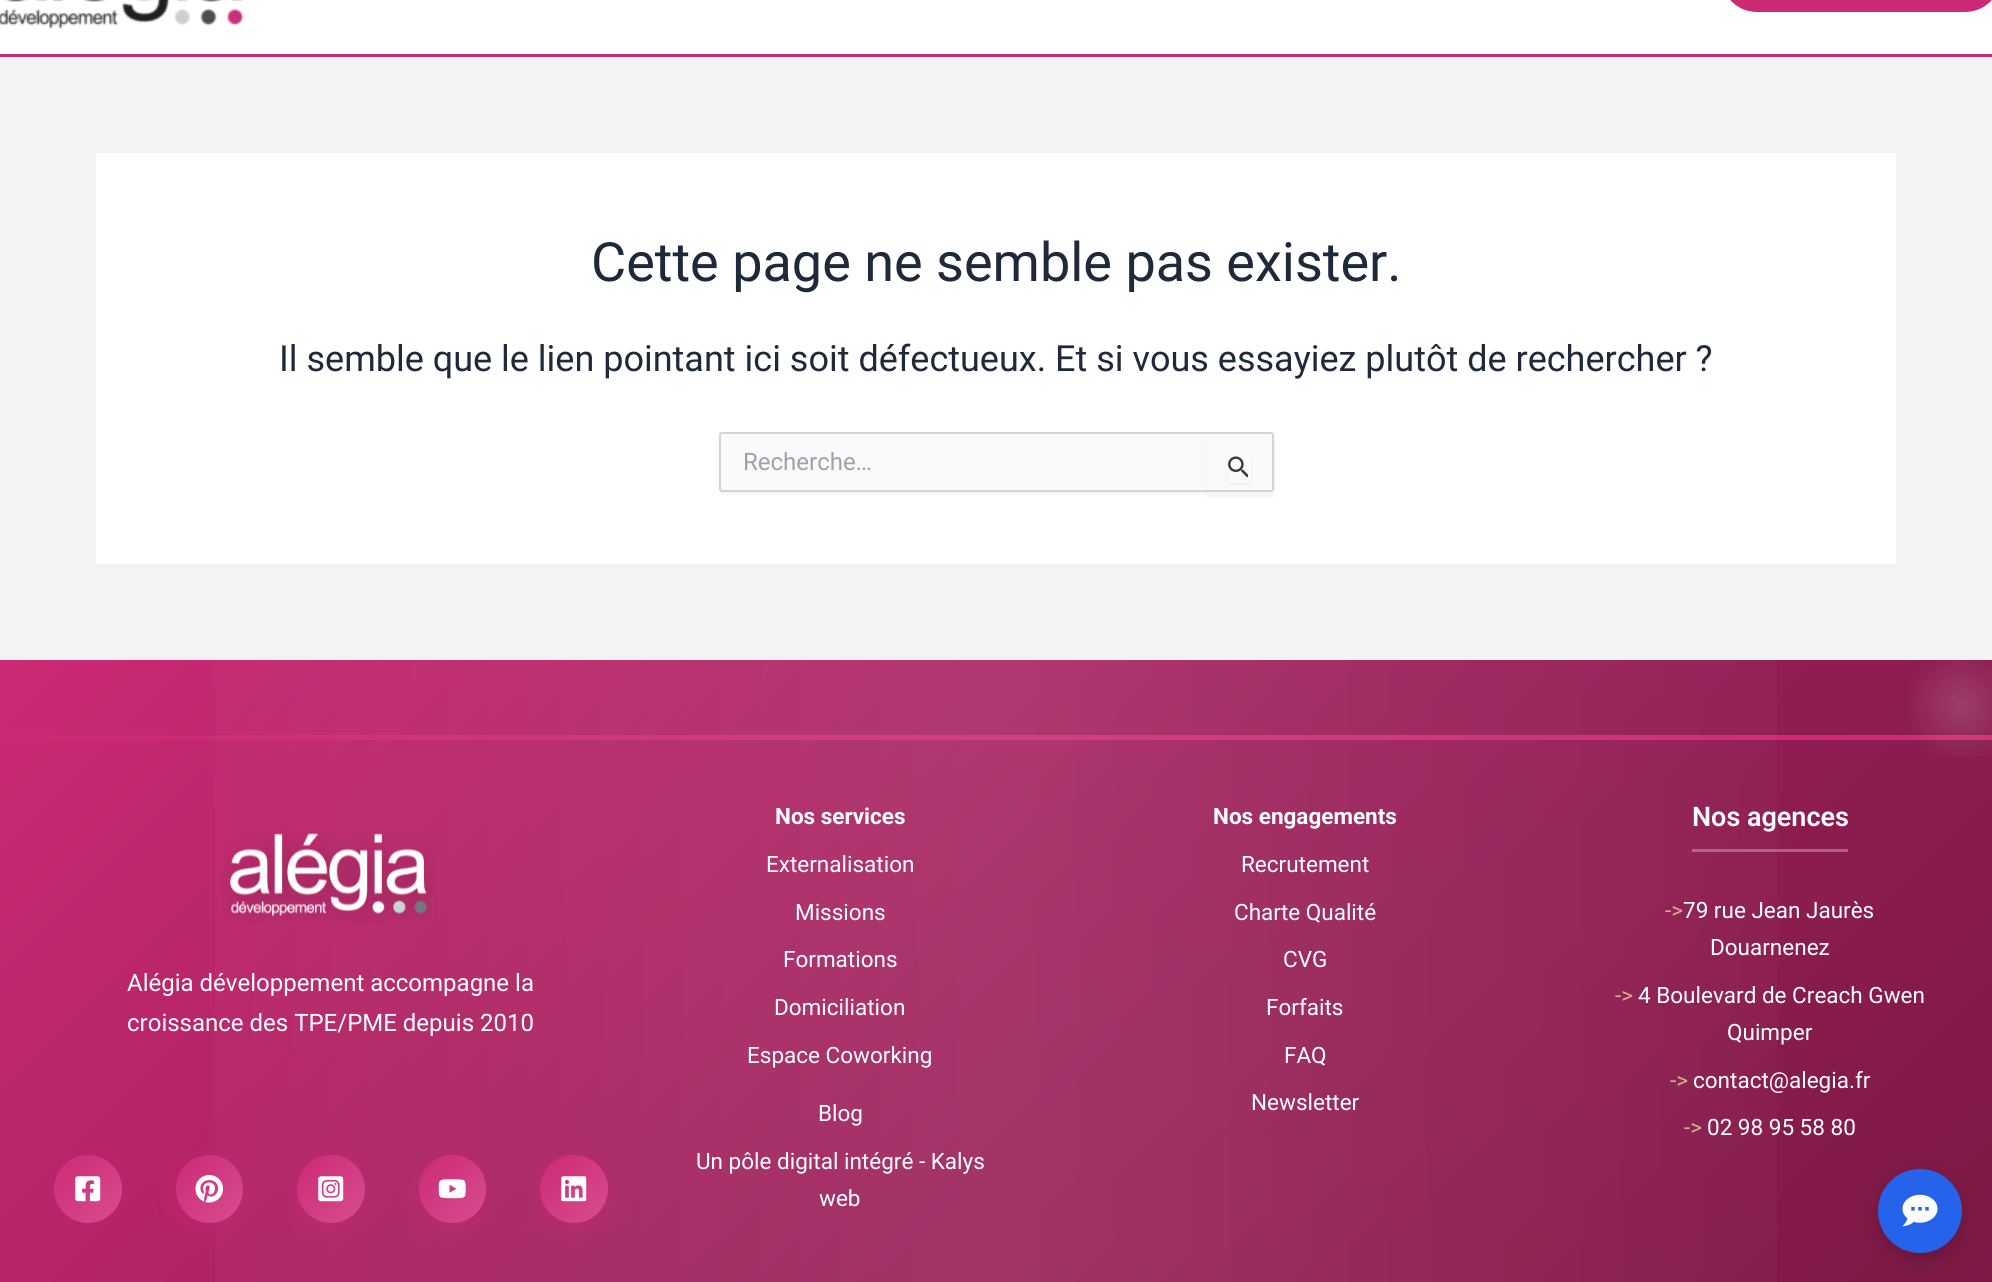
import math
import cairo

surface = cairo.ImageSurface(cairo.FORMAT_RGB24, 1992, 1282)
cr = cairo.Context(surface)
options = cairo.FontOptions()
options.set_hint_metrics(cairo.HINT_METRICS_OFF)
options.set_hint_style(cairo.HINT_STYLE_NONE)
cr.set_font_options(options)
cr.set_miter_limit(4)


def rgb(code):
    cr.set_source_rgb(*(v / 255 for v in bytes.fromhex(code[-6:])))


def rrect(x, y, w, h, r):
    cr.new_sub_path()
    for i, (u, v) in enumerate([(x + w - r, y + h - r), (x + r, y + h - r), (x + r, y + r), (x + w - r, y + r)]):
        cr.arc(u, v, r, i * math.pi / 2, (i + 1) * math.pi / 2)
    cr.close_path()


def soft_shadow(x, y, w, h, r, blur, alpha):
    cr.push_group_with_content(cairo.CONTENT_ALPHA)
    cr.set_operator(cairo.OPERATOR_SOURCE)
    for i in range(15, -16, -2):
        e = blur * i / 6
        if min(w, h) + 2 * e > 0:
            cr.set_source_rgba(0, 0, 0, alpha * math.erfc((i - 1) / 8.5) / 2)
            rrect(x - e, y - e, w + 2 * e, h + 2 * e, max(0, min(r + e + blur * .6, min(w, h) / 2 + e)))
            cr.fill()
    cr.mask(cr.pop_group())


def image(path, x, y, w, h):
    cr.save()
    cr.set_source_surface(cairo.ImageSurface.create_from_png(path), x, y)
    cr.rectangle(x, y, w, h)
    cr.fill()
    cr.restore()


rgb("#f3f3f3")
cr.paint()
rgb("#ffffff")
cr.rectangle(0, 0, 1992, 54)
cr.fill()
rgb("#cc2a74")
cr.rectangle(0, 54, 1992, 3)
cr.fill()
image("img/1.png", 0, 0, 244, 29)
rrect(1721, -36, 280, 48, 36)
cr.fill()
rgb("#ffffff")
cr.rectangle(96, 153, 1800, 411)
cr.fill()
rgb("#000000")
soft_shadow(719, 434, 555, 60, 3, 1.5, 0.05)
rgb("#fafafa")
rrect(720, 433, 553, 58, 2)
cr.fill_preserve()
rgb("#d1d5db")
cr.stroke()
cr.save()
cr.set_fill_rule(cairo.FILL_RULE_EVEN_ODD)
cr.new_path()
cr.move_to(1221, 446)
cr.line_to(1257, 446)
cr.line_to(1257, 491)
cr.line_to(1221, 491)
cr.close_path()
cr.move_to(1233, 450)
cr.line_to(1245, 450)
cr.curve_to(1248.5, 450, 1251, 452.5, 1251, 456)
cr.line_to(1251, 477)
cr.curve_to(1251, 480.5, 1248.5, 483, 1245, 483)
cr.line_to(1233, 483)
cr.curve_to(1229.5, 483, 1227, 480.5, 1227, 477)
cr.line_to(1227, 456)
cr.curve_to(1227, 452.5, 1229.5, 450, 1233, 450)
cr.close_path()
cr.clip()
rgb("#000000")
soft_shadow(1227, 452, 24, 33, 6, 1.5, 0.05)
cr.restore()
image("img/2.png", 1228, 456, 20, 22)
cr.save()
cr.set_fill_rule(cairo.FILL_RULE_EVEN_ODD)
cr.new_path()
cr.move_to(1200, 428)
cr.line_to(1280, 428)
cr.line_to(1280, 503)
cr.line_to(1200, 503)
cr.close_path()
cr.move_to(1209, 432)
cr.line_to(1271, 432)
cr.curve_to(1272.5, 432, 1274, 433.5, 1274, 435)
cr.line_to(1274, 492)
cr.curve_to(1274, 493.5, 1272.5, 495, 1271, 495)
cr.line_to(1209, 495)
cr.curve_to(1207.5, 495, 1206, 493.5, 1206, 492)
cr.line_to(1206, 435)
cr.curve_to(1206, 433.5, 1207.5, 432, 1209, 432)
cr.close_path()
cr.clip()
rgb("#000000")
soft_shadow(1206, 434, 68, 63, 3, 1.5, 0.05)
cr.restore()
gradient = cairo.LinearGradient(326, 334, 1666, 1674)
gradient.add_color_stop_rgba(0, 0.8, 0.165, 0.455, 1)
gradient.add_color_stop_rgba(0.5, 0.616, 0.122, 0.353, 1)
gradient.add_color_stop_rgba(1, 0.478, 0.098, 0.267, 1)
cr.set_source(gradient)
cr.rectangle(0, 660, 1992, 622)
cr.fill()
rgb("#cd2a74")
cr.rectangle(0, 735, 1992, 5)
cr.fill()
gradient = cairo.LinearGradient(0, 1004, 1992, 1004)
gradient.add_color_stop_rgba(0, 1, 1, 1, 0)
gradient.add_color_stop_rgba(0.5, 1, 1, 1, 0.1)
gradient.add_color_stop_rgba(1, 1, 1, 1, 0)
cr.set_source(gradient)
cr.rectangle(215, 660, 1562, 622)
cr.fill()
gradient = cairo.RadialGradient(1962, 705, 0, 1962, 705, 85)
gradient.add_color_stop_rgba(0, 1, 1, 1, 0.15)
gradient.add_color_stop_rgba(0.7, 1, 1, 1, 0)
cr.set_source(gradient)
cr.rectangle(1911, 660, 81, 96)
cr.fill()
image("img/3.png", 221, 833, 216, 91)
gradient = cairo.LinearGradient(54, 1155, 122, 1223)
gradient.add_color_stop_rgba(0, 0.8, 0.165, 0.455, 1)
gradient.add_color_stop_rgba(1, 0.847, 0.302, 0.561, 1)
cr.set_source(gradient)
cr.arc(88, 1189, 34, 0, 2 * math.pi)
cr.fill()
image("img/4.png", 75, 1176, 26, 26)
rgb("#cc2a74")
soft_shadow(176, 1161, 67, 68, 33.5, 11, 0.4)
gradient = cairo.LinearGradient(176, 1155, 243, 1223)
gradient.add_color_stop_rgba(0, 0.8, 0.165, 0.455, 1)
gradient.add_color_stop_rgba(1, 0.847, 0.302, 0.561, 1)
cr.set_source(gradient)
rrect(176, 1155, 67, 68, 33.5)
cr.fill()
image("img/5.png", 195, 1175, 29, 28)
rgb("#cc2a74")
soft_shadow(297, 1161, 68, 68, 34, 11, 0.4)
gradient = cairo.LinearGradient(297, 1155, 365, 1223)
gradient.add_color_stop_rgba(0, 0.8, 0.165, 0.455, 1)
gradient.add_color_stop_rgba(1, 0.847, 0.302, 0.561, 1)
cr.set_source(gradient)
cr.arc(331, 1189, 34, 0, 2 * math.pi)
cr.fill()
image("img/6.png", 318, 1176, 26, 26)
rgb("#cc2a74")
soft_shadow(419, 1161, 67, 68, 33.5, 11, 0.4)
gradient = cairo.LinearGradient(419, 1155, 486, 1223)
gradient.add_color_stop_rgba(0, 0.8, 0.165, 0.455, 1)
gradient.add_color_stop_rgba(1, 0.847, 0.302, 0.561, 1)
cr.set_source(gradient)
rrect(419, 1155, 67, 68, 33.5)
cr.fill()
image("img/7.png", 438, 1179, 28, 20)
rgb("#cc2a74")
soft_shadow(540, 1161, 68, 68, 34, 11, 0.4)
gradient = cairo.LinearGradient(540, 1155, 608, 1223)
gradient.add_color_stop_rgba(0, 0.8, 0.165, 0.455, 1)
gradient.add_color_stop_rgba(1, 0.847, 0.302, 0.561, 1)
cr.set_source(gradient)
cr.arc(574, 1189, 34, 0, 2 * math.pi)
cr.fill()
image("img/8.png", 561, 1176, 26, 26)
cr.set_source_rgba(1, 1, 1, 0.3)
cr.rectangle(1692, 849, 156, 3)
cr.fill()
rgb("#000000")
soft_shadow(1878, 1175, 84, 84, 42, 9, 0.2)
rgb("#2563eb")
cr.arc(1920, 1211, 42, 0, 2 * math.pi)
cr.fill()
image("img/9.png", 1902, 1194, 36, 33)
cr.select_font_face("Roboto")
cr.set_font_size(54)
rgb("#1e293b")
cr.move_to(591, 281)
cr.show_text("Cette page ne semble pas exister.")
cr.set_font_size(36)
cr.move_to(279, 371)
cr.show_text("Il semble que le lien pointant ici soit défectueux. Et si vous essayiez plutôt de rechercher ?")
cr.set_font_size(24)
rgb("#9ca3af")
cr.move_to(743, 470)
cr.show_text("Recherche…")
rgb("#ffffff")
cr.move_to(127, 991)
cr.show_text("Alégia développement accompagne la")
cr.move_to(127, 1031)
cr.show_text("croissance des TPE/PME depuis 2010")
cr.select_font_face("Roboto", cairo.FONT_SLANT_NORMAL, cairo.FONT_WEIGHT_BOLD)
cr.set_font_size(22.5)
cr.move_to(775, 824)
cr.show_text("Nos services")
cr.select_font_face("Roboto")
for x, y, s in [
    (766, 872, "Externalisation"),
    (795, 920, "Missions"),
    (783, 967, "Formations"),
    (774, 1015, "Domiciliation"),
    (747, 1063, "Espace Coworking"),
    (818, 1121, "Blog"),
    (696, 1169, "Un pôle digital intégré - Kalys"),
    (819, 1206, "web"),
]:
    cr.move_to(x, y)
    cr.show_text(s)
cr.select_font_face("Roboto", cairo.FONT_SLANT_NORMAL, cairo.FONT_WEIGHT_BOLD)
cr.move_to(1213, 824)
cr.show_text("Nos engagements")
cr.select_font_face("Roboto")
for x, y, s in [
    (1241, 872, "Recrutement"),
    (1234, 920, "Charte Qualité"),
    (1283, 967, "CVG"),
    (1266, 1015, "Forfaits"),
    (1284, 1063, "FAQ"),
    (1251, 1110, "Newsletter"),
]:
    cr.move_to(x, y)
    cr.show_text(s)
cr.select_font_face("Roboto SemiBold")
cr.set_font_size(27)
cr.move_to(1692, 826)
cr.show_text("Nos agences")
cr.select_font_face("Roboto")
cr.set_font_size(22.5)
rgb("#d4af87")
cr.move_to(1665, 918)
cr.show_text("->")
rgb("#ffffff")
cr.move_to(1683, 918)
cr.show_text("79 rue Jean Jaurès")
cr.move_to(1710, 955)
cr.show_text("Douarnenez")
rgb("#d4af87")
cr.move_to(1615, 1003)
cr.show_text("->")
rgb("#ffffff")
cr.move_to(1638, 1003)
cr.show_text("4 Boulevard de Creach Gwen")
cr.move_to(1727, 1040)
cr.show_text("Quimper")
rgb("#d4af87")
cr.move_to(1670, 1088)
cr.show_text("->")
rgb("#ffffff")
cr.move_to(1693, 1088)
cr.show_text("contact@alegia.fr")
rgb("#d4af87")
cr.move_to(1684, 1135)
cr.show_text("->")
rgb("#ffffff")
cr.move_to(1707, 1135)
cr.show_text("02 98 95 58 80")
surface.write_to_png("page.png")
